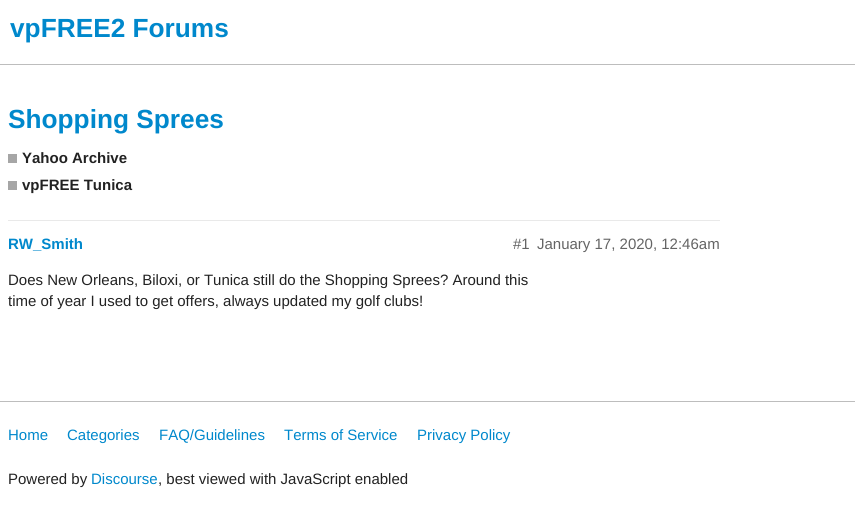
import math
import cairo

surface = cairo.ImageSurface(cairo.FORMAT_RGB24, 855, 523)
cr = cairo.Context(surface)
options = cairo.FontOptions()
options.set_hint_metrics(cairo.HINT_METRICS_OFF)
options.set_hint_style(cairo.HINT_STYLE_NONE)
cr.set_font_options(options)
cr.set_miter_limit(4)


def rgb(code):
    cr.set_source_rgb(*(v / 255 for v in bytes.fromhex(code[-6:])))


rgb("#ffffff")
cr.paint()
for x, y, w, h, color in [
    (0, 64, 855, 1, "#bdbdbd"),
    (8, 154, 9, 9, "#a6a6a6"),
    (8, 181, 9, 9, "#a6a6a6"),
    (8, 220, 712, 1, "#e9e9e9"),
    (0, 401, 855, 1, "#bdbdbd"),
]:
    rgb(color)
    cr.rectangle(x, y, w, h)
    cr.fill()
cr.select_font_face("Liberation Sans", cairo.FONT_SLANT_NORMAL, cairo.FONT_WEIGHT_BOLD)
cr.set_font_size(26.25)
rgb("#0088cc")
cr.move_to(10, 37)
cr.show_text("vpFREE2 Forums")
cr.move_to(8, 128)
cr.show_text("Shopping Sprees")
cr.set_font_size(15)
rgb("#222222")
cr.move_to(22, 163)
cr.show_text("Yahoo Archive")
cr.move_to(22, 190)
cr.show_text("vpFREE Tunica")
rgb("#0088cc")
cr.move_to(8, 249)
cr.show_text("RW_Smith")
cr.select_font_face("Liberation Sans")
rgb("#646464")
cr.move_to(513, 249)
cr.show_text("#1")
cr.move_to(537, 249)
cr.show_text("January 17, 2020, 12:46am")
rgb("#222222")
cr.move_to(8, 285)
cr.show_text("Does New Orleans, Biloxi, or Tunica still do the Shopping Sprees? Around this")
cr.move_to(8, 306)
cr.show_text("time of year I used to get offers, always updated my golf clubs!")
rgb("#0088cc")
for x, y, s in [
    (8, 440, "Home"),
    (67, 440, "Categories"),
    (159, 440, "FAQ/Guidelines"),
    (284, 440, "Terms of Service"),
    (417, 440, "Privacy Policy"),
]:
    cr.move_to(x, y)
    cr.show_text(s)
rgb("#222222")
cr.move_to(8, 484)
cr.show_text("Powered by")
rgb("#0088cc")
cr.move_to(91, 484)
cr.show_text("Discourse")
rgb("#222222")
cr.move_to(158, 484)
cr.show_text(", best viewed with JavaScript enabled")
surface.write_to_png("page.png")
